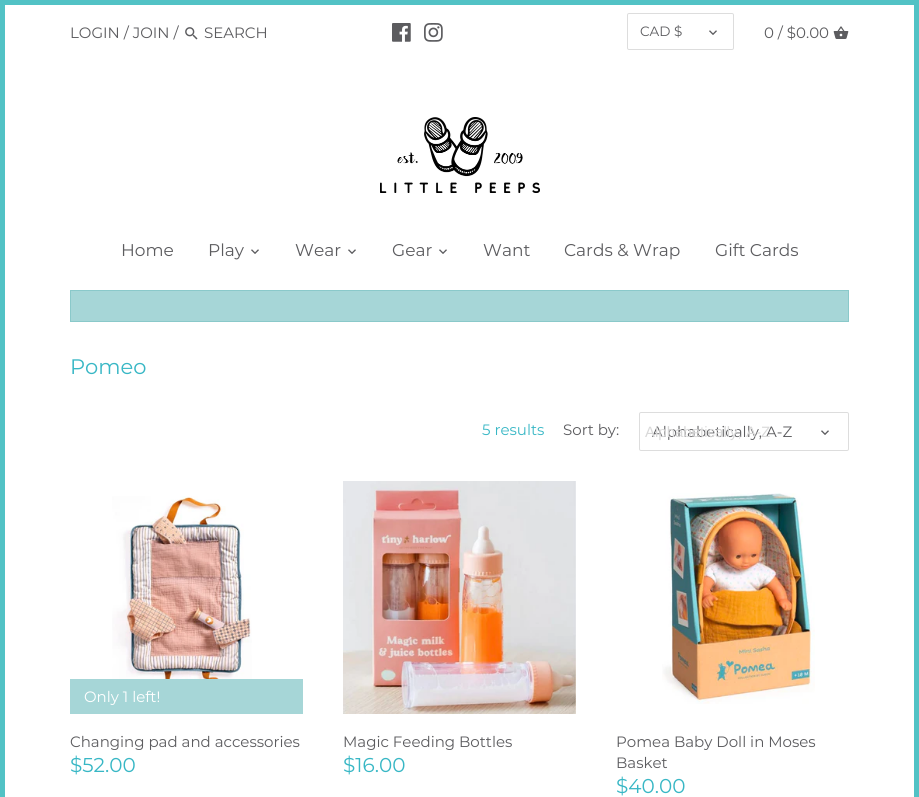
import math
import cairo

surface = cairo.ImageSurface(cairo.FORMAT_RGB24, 919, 797)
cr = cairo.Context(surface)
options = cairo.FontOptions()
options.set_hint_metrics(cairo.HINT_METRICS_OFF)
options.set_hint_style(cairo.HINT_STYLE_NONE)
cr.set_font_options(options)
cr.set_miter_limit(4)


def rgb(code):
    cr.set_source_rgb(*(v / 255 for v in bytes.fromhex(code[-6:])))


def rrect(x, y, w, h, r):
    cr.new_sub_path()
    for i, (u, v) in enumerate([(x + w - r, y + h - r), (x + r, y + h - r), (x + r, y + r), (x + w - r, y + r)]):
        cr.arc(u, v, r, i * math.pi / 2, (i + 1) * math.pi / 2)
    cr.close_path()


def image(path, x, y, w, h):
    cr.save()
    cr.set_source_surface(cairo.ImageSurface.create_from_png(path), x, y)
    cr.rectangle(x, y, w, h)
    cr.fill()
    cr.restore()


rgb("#ffffff")
cr.paint()
cr.rectangle(2.5, 2.5, 914, 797)
rgb("#52c2c5")
cr.set_line_width(5)
cr.stroke()
image("img/1.png", 185, 27, 13, 13)
image("img/2.png", 392, 23, 19, 19)
image("img/3.png", 424, 23, 19, 19)
rrect(627.5, 13.5, 106, 36, 1.5)
rgb("#dddddd")
cr.set_line_width(1)
cr.stroke()
image("img/4.png", 709, 30, 8, 5)
image("img/5.png", 833, 26, 16, 13)
image("img/6.png", 380, 117, 160, 76)
image("img/4.png", 251, 249, 8, 5)
image("img/4.png", 348, 249, 8, 5)
image("img/4.png", 439, 249, 8, 5)
rgb("#a6d6d7")
cr.rectangle(70.5, 290.5, 778, 31)
cr.fill_preserve()
rgb("#8ac9ca")
cr.stroke()
rrect(639.5, 412.5, 209, 38, 1.5)
rgb("#dddddd")
cr.stroke()
image("img/4.png", 821, 430, 8, 5)
image("img/7.png", 112, 496, 140, 183)
rgb("#a6d6d7")
cr.rectangle(70, 679, 233, 35)
cr.fill()
image("img/8.png", 343, 481, 233, 233)
image("img/9.png", 662, 493, 153, 211)
cr.select_font_face("Montserrat")
cr.set_font_size(15)
rgb("#5c5c5f")
cr.move_to(70, 38)
cr.show_text("LOGIN / JOIN /")
cr.move_to(204, 38)
cr.show_text("SEARCH")
cr.set_font_size(13.5)
cr.move_to(640, 36)
cr.show_text("CAD $")
cr.set_font_size(15)
cr.move_to(764, 38)
cr.show_text("0 / $0.00")
cr.set_font_size(17)
for x, y, s in [
    (121, 256, "Home"),
    (208, 256, "Play"),
    (295, 256, "Wear"),
    (392, 256, "Gear"),
    (483, 256, "Want"),
    (564, 256, "Cards & Wrap"),
    (715, 256, "Gift Cards"),
]:
    cr.move_to(x, y)
    cr.show_text(s)
cr.set_font_size(21)
rgb("#38b7c5")
cr.move_to(70, 374)
cr.show_text("Pomeo")
cr.set_font_size(15)
cr.move_to(482, 435)
cr.show_text("5 results")
rgb("#5c5c5f")
cr.move_to(563, 435)
cr.show_text("Sort by:")
cr.move_to(652, 437)
cr.show_text("Alphabetically, A-Z")
cr.select_font_face("Liberation Sans")
rgb("#d9d9d9")
cr.move_to(645, 437)
cr.show_text("Alphabetically, A-Z")
cr.select_font_face("Montserrat")
rgb("#ffffff")
cr.move_to(84, 702)
cr.show_text("Only 1 left!")
rgb("#5c5c5f")
cr.move_to(70, 747)
cr.show_text("Changing pad and accessories")
cr.set_font_size(20)
rgb("#38b7c5")
cr.move_to(70, 772)
cr.show_text("$52.00")
cr.set_font_size(15)
rgb("#5c5c5f")
cr.move_to(343, 747)
cr.show_text("Magic Feeding Bottles")
cr.set_font_size(20)
rgb("#38b7c5")
cr.move_to(343, 772)
cr.show_text("$16.00")
cr.set_font_size(15)
rgb("#5c5c5f")
cr.move_to(616, 747)
cr.show_text("Pomea Baby Doll in Moses")
cr.move_to(616, 768)
cr.show_text("Basket")
cr.set_font_size(20)
rgb("#38b7c5")
cr.move_to(616, 793)
cr.show_text("$40.00")
surface.write_to_png("page.png")
